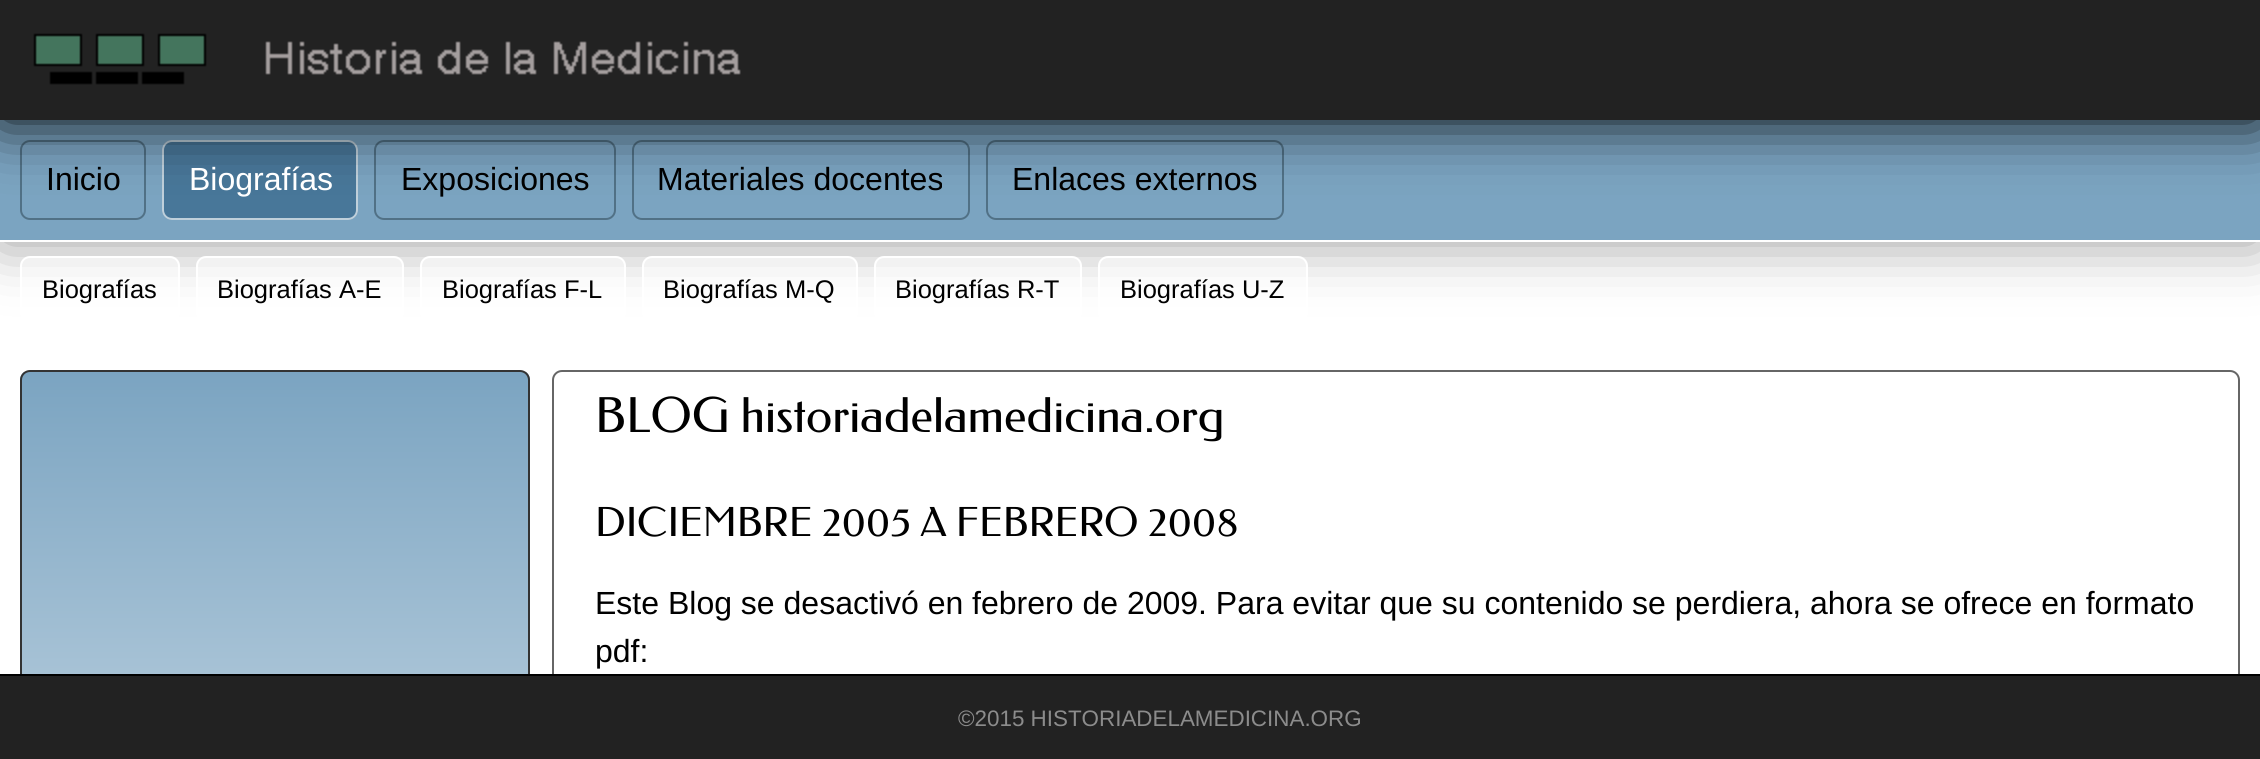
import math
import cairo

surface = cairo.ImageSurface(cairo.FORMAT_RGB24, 2260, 759)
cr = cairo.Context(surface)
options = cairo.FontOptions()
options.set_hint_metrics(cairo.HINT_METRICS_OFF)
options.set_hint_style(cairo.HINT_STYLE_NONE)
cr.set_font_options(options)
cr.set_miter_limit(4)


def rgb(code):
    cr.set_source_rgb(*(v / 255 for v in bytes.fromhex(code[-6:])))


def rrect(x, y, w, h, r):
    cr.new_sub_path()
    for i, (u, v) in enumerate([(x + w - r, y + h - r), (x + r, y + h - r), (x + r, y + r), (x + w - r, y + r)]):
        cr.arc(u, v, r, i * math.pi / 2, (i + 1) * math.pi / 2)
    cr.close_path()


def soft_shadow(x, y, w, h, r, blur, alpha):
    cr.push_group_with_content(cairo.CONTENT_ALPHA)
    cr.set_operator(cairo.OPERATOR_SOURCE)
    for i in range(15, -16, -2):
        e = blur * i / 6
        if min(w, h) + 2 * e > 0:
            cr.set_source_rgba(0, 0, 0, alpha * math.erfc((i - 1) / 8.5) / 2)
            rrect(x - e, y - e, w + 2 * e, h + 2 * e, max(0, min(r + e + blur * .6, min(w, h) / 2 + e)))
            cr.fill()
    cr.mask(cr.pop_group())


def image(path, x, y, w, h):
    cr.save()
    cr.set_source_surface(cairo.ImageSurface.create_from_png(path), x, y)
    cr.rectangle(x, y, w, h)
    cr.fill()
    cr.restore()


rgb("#ffffff")
cr.paint()
rgb("#999999")
soft_shadow(0, 120, 2260, 122, 0, 30, 1)
rgb("#7ba4c1")
cr.rectangle(0, 120, 2260, 120)
cr.fill()
rgb("#487799")
rrect(162, 140, 196, 80, 10)
cr.fill()
rrect(163, 141, 194, 78, 9)
cr.set_source_rgba(1, 1, 1, 0.65)
cr.stroke()
rrect(21, 141, 124, 78, 9)
rgb("#517186")
cr.stroke()
rrect(375, 141, 240, 78, 9)
cr.stroke()
rrect(633, 141, 336, 78, 9)
cr.stroke()
rrect(987, 141, 296, 78, 9)
cr.stroke()
rgb("#000000")
soft_shadow(0, 0, 2260, 120, 0, 30, 1)
rgb("#222222")
cr.rectangle(0, 0, 2260, 120)
cr.fill()
image("img/1.png", 33, 33, 708, 52)
rgb("#ffffff")
cr.rectangle(0, 240, 2260, 2)
cr.fill()
cr.set_source_rgba(1, 1, 1, 0.5)
rrect(21, 257, 158, 64, 9)
cr.fill_preserve()
rgb("#ffffff")
cr.stroke()
cr.set_source_rgba(1, 1, 1, 0.5)
rrect(197, 257, 206, 64, 9)
cr.fill_preserve()
rgb("#ffffff")
cr.stroke()
cr.set_source_rgba(1, 1, 1, 0.5)
rrect(421, 257, 204, 64, 9)
cr.fill_preserve()
rgb("#ffffff")
cr.stroke()
cr.set_source_rgba(1, 1, 1, 0.5)
rrect(643, 257, 214, 64, 9)
cr.fill_preserve()
rgb("#ffffff")
cr.stroke()
cr.set_source_rgba(1, 1, 1, 0.5)
rrect(875, 257, 206, 64, 9)
cr.fill_preserve()
rgb("#ffffff")
cr.stroke()
cr.set_source_rgba(1, 1, 1, 0.5)
rrect(1099, 257, 208, 64, 9)
cr.fill_preserve()
rgb("#ffffff")
cr.stroke()
cr.save()
rrect(20, 370, 510, 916, 10)
cr.clip()
gradient = cairo.LinearGradient(275, 372, 275, 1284)
gradient.add_color_stop_rgba(0, 0.482, 0.643, 0.757, 1)
gradient.add_color_stop_rgba(1, 1, 1, 1, 1)
cr.set_source(gradient)
cr.rectangle(20, 372, 510, 302)
cr.fill()
cr.restore()
rrect(21, 371, 508, 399, 9)
rgb("#333333")
cr.stroke()
rrect(553, 371, 1686, 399, 9)
rgb("#666666")
cr.stroke()
rgb("#222222")
cr.rectangle(0, 676, 2260, 83)
cr.fill()
rgb("#000000")
cr.rectangle(0, 674, 2260, 2)
cr.fill()
cr.select_font_face("Liberation Sans")
cr.set_font_size(32)
rgb("#ffffff")
cr.move_to(189, 190)
cr.show_text("Biografías")
cr.set_font_size(25.5)
rgb("#000000")
for x, y, s in [
    (42, 298, "Biografías"),
    (217, 298, "Biografías A-E"),
    (442, 298, "Biografías F-L"),
    (663, 298, "Biografías M-Q"),
    (895, 298, "Biografías R-T"),
    (1120, 298, "Biografías U-Z"),
]:
    cr.move_to(x, y)
    cr.show_text(s)
cr.set_font_size(32)
for x, y, s in [
    (46, 190, "Inicio"),
    (401, 190, "Exposiciones"),
    (657, 190, "Materiales docentes"),
    (1012, 190, "Enlaces externos"),
]:
    cr.move_to(x, y)
    cr.show_text(s)
cr.select_font_face("Federo")
cr.set_font_size(48)
cr.move_to(595, 432)
cr.show_text("BLOG historiadelamedicina.org")
cr.set_font_size(40)
cr.move_to(595, 536)
cr.show_text("DICIEMBRE 2005 A FEBRERO 2008")
cr.select_font_face("Liberation Sans")
cr.set_font_size(32)
cr.move_to(595, 614)
cr.show_text("Este Blog se desactivó en febrero de 2009. Para evitar que su contenido se perdiera, ahora se ofrece en formato")
cr.move_to(595, 662)
cr.show_text("pdf:")
cr.set_font_size(22.4)
rgb("#8c8c8c")
cr.move_to(958, 726)
cr.show_text("©2015 HISTORIADELAMEDICINA.ORG")
surface.write_to_png("page.png")
